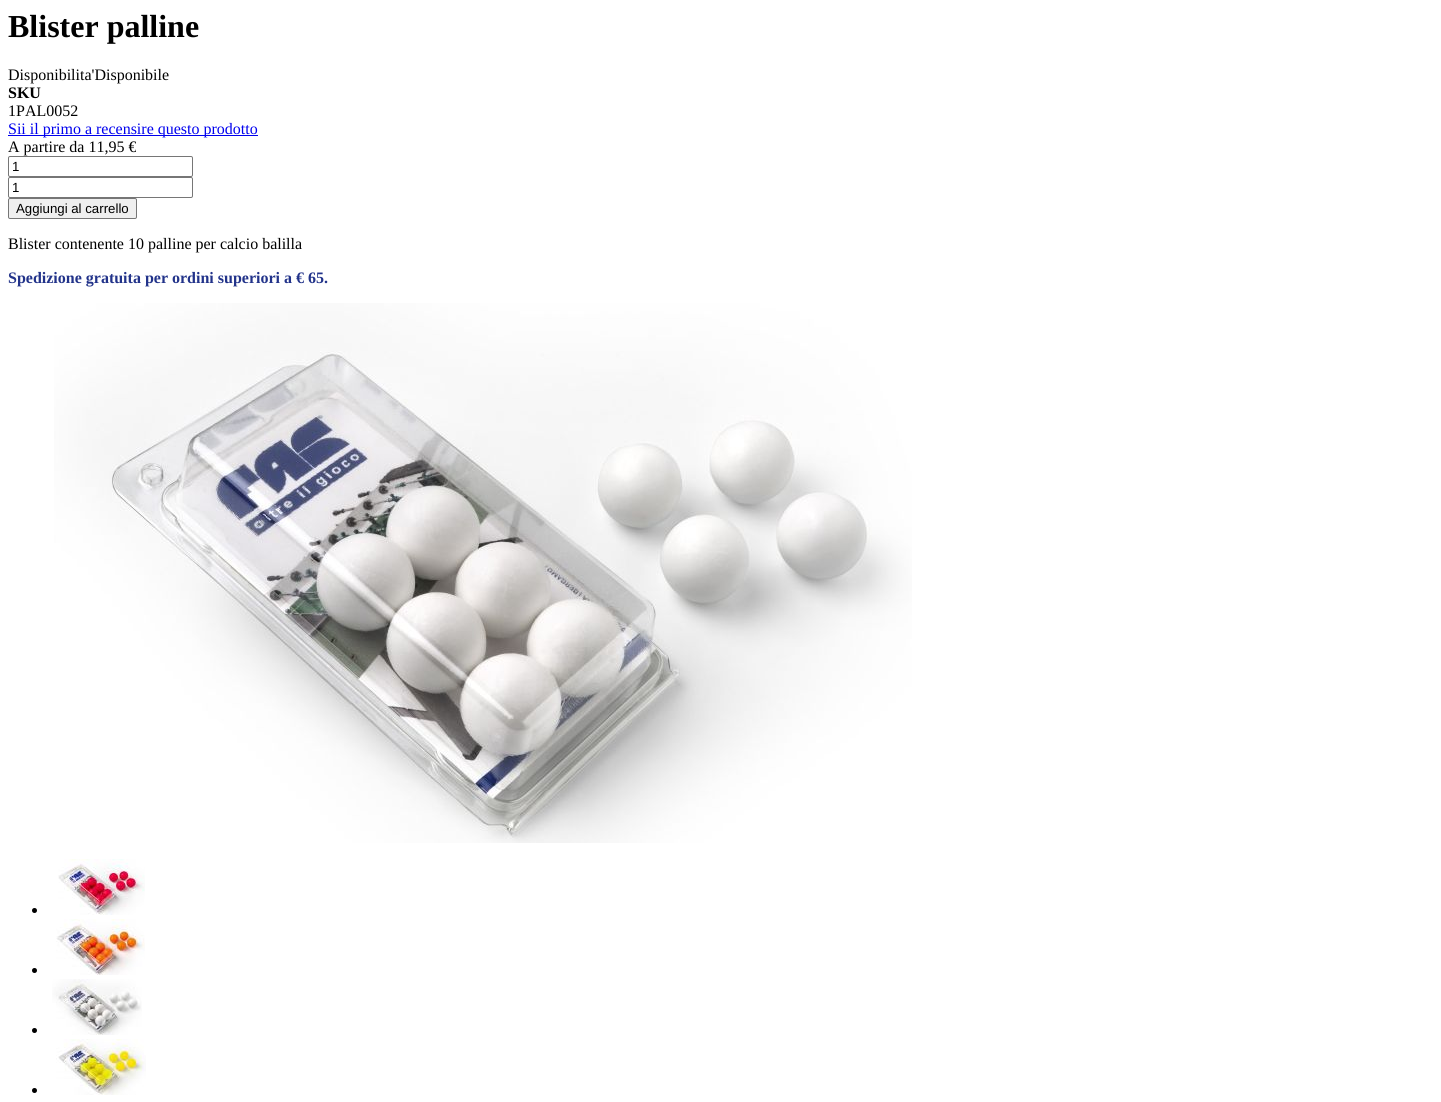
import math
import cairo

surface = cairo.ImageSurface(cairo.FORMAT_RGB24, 1441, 1102)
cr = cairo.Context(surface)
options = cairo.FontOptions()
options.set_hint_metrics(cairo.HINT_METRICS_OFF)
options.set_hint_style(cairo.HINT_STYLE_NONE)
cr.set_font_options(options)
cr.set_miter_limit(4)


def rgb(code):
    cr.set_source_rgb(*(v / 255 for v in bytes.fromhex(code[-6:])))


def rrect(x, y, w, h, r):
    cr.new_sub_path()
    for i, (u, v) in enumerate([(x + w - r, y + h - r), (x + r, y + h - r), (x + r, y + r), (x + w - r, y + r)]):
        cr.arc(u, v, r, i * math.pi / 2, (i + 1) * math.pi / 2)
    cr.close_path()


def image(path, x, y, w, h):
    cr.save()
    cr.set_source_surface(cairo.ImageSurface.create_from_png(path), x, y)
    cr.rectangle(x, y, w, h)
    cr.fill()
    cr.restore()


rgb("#ffffff")
cr.paint()
rgb("#0000ee")
cr.rectangle(8, 135, 250, 1)
cr.fill()
rrect(8.5, 156.5, 184, 20, 1.5)
rgb("#767676")
cr.set_line_width(1)
cr.stroke()
rrect(8.5, 177.5, 184, 20, 1.5)
cr.stroke()
rgb("#efefef")
rrect(8.5, 198.5, 128, 20, 1.5)
cr.fill_preserve()
rgb("#767676")
cr.stroke()
image("img/1.png", 54, 303, 858, 540)
rgb("#000000")
cr.arc(34.5, 910.5, 2.5, 0, 2 * math.pi)
cr.fill()
image("img/2.png", 58, 859, 87, 56)
cr.arc(34.5, 970.5, 2.5, 0, 2 * math.pi)
cr.fill()
image("img/3.png", 56, 919, 89, 56)
cr.arc(34.5, 1030.5, 2.5, 0, 2 * math.pi)
cr.fill()
image("img/4.png", 52, 979, 90, 56)
cr.arc(34.5, 1090.5, 2.5, 0, 2 * math.pi)
cr.fill()
image("img/5.png", 56, 1039, 90, 56)
cr.select_font_face("Liberation Serif", cairo.FONT_SLANT_NORMAL, cairo.FONT_WEIGHT_BOLD)
cr.set_font_size(32)
cr.move_to(8, 37)
cr.show_text("Blister palline")
cr.select_font_face("Liberation Serif")
cr.set_font_size(16)
cr.move_to(8, 80)
cr.show_text("Disponibilita'Disponibile")
cr.select_font_face("Liberation Serif", cairo.FONT_SLANT_NORMAL, cairo.FONT_WEIGHT_BOLD)
cr.move_to(8, 98)
cr.show_text("SKU")
cr.select_font_face("Liberation Serif")
cr.move_to(8, 116)
cr.show_text("1PAL0052")
rgb("#0000ee")
cr.move_to(8, 134)
cr.show_text("Sii il primo a recensire questo prodotto")
rgb("#000000")
cr.move_to(8, 152)
cr.show_text("A partire da 11,95 €")
cr.select_font_face("Liberation Sans")
cr.set_font_size(13.25)
for x, y, s in [
    (12, 171, "1"),
    (12, 192, "1"),
    (16, 213, "Aggiungi al carrello"),
]:
    cr.move_to(x, y)
    cr.show_text(s)
cr.select_font_face("Liberation Serif")
cr.set_font_size(16)
cr.move_to(8, 249)
cr.show_text("Blister contenente 10 palline per calcio balilla")
cr.select_font_face("Liberation Serif", cairo.FONT_SLANT_NORMAL, cairo.FONT_WEIGHT_BOLD)
rgb("#22338a")
cr.move_to(8, 283)
cr.show_text("Spedizione gratuita per ordini superiori a € 65.")
surface.write_to_png("page.png")
